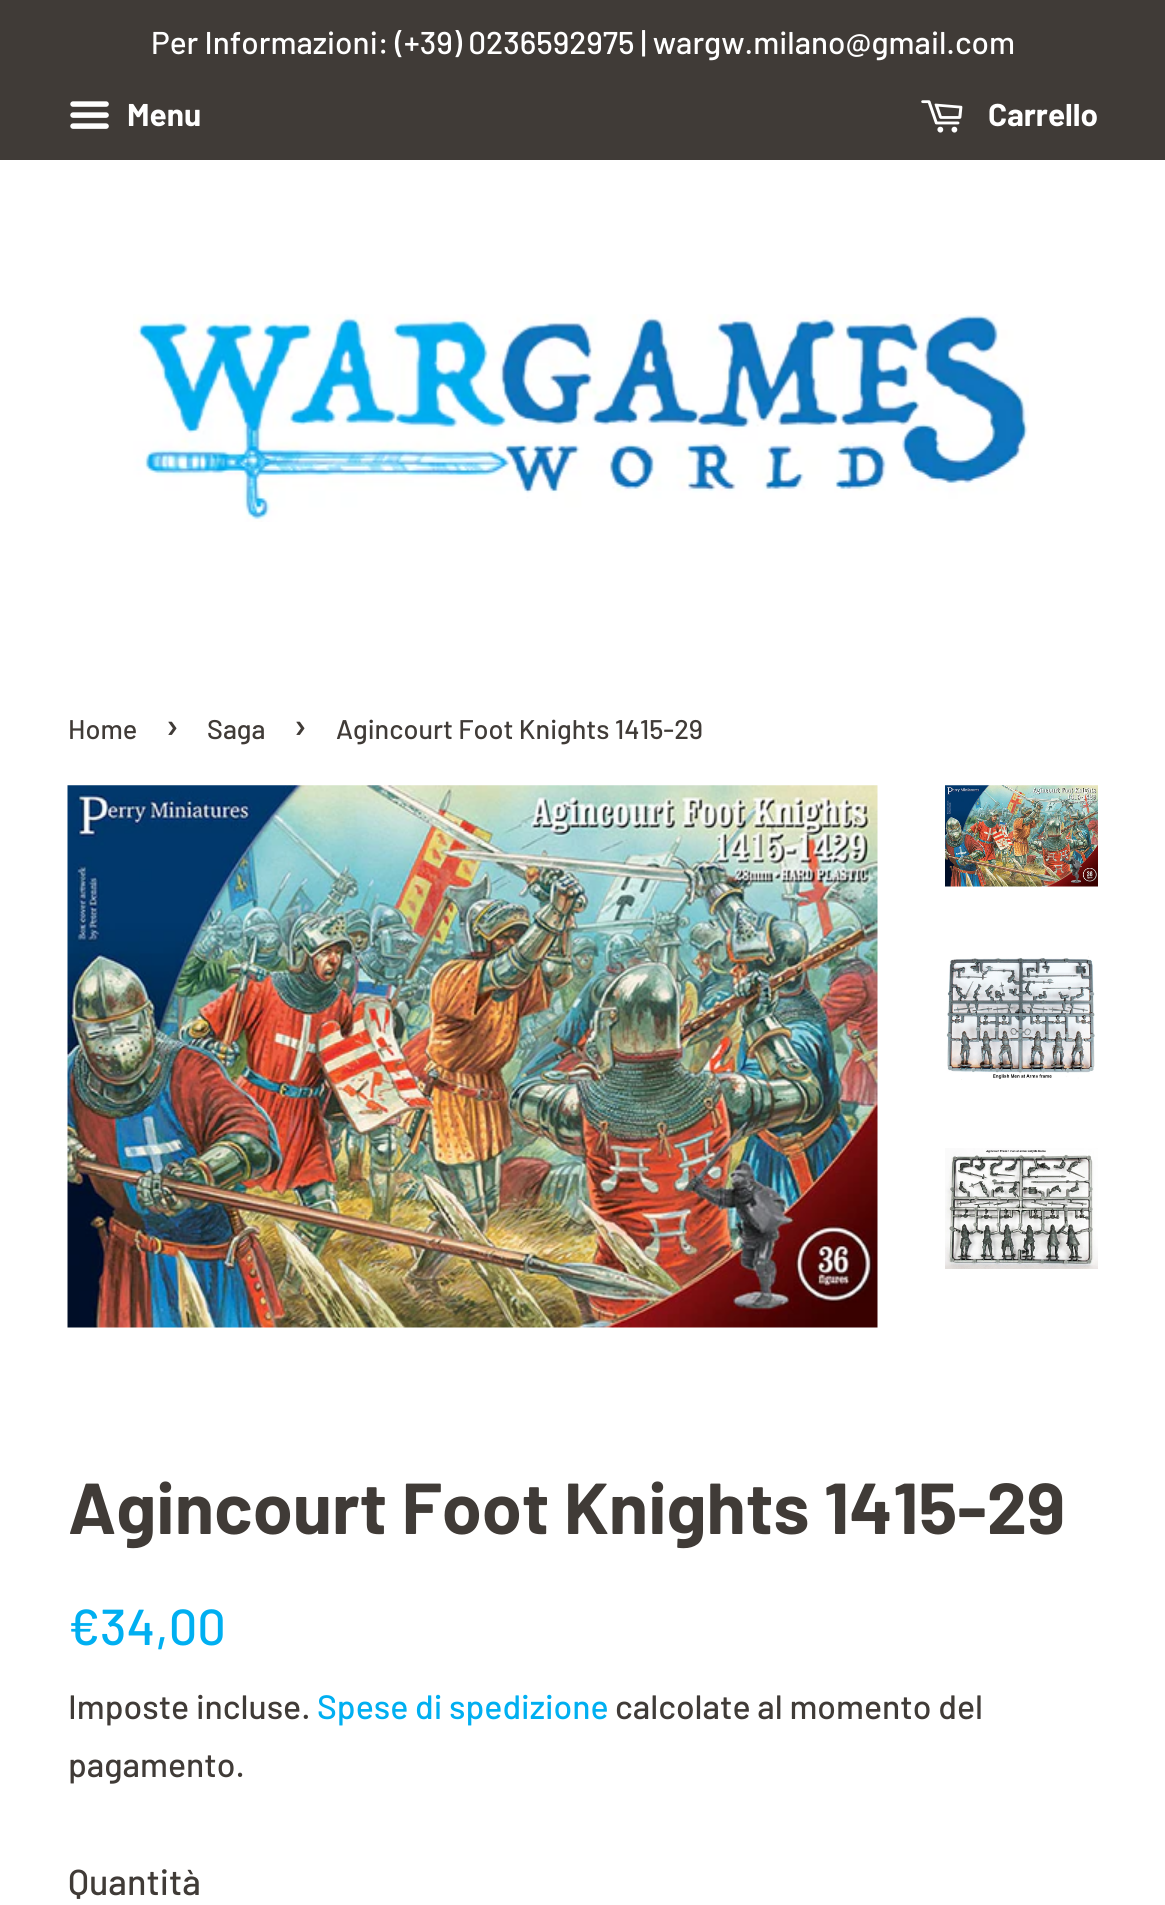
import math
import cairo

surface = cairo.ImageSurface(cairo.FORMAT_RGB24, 1165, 1905)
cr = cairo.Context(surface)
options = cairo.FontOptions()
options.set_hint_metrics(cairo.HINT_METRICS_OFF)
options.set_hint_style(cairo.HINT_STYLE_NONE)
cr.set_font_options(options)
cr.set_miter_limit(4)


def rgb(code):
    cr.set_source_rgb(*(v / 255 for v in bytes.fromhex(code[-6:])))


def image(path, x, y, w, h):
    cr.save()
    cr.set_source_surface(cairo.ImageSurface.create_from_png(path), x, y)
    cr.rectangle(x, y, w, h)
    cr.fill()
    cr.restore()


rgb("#ffffff")
cr.paint()
rgb("#403b37")
cr.rectangle(0, 0, 1165, 160)
cr.fill()
image("img/1.png", 70, 101, 39, 28)
image("img/2.png", 921, 100, 42, 33)
image("img/3.png", 133, 314, 896, 208)
image("img/4.png", 67, 785, 811, 543)
image("img/5.png", 945, 785, 153, 102)
image("img/6.png", 946, 956, 149, 124)
image("img/7.png", 945, 1148, 153, 121)
cr.select_font_face("Barlow Medium")
cr.set_font_size(31.5)
rgb("#ffffff")
cr.move_to(151, 54)
cr.show_text("Per Informazioni: (+39) 0236592975 | wargw.milano@gmail.com")
cr.select_font_face("Barlow", cairo.FONT_SLANT_NORMAL, cairo.FONT_WEIGHT_BOLD)
cr.move_to(127, 126)
cr.show_text("Menu")
cr.move_to(988, 126)
cr.show_text("Carrello")
cr.select_font_face("Barlow Medium")
cr.set_font_size(27)
rgb("#403b37")
cr.move_to(68, 739)
cr.show_text("Home")
cr.set_font_size(38)
cr.move_to(165, 739)
cr.show_text("›")
cr.set_font_size(27)
cr.move_to(207, 739)
cr.show_text("Saga")
cr.set_font_size(38)
cr.move_to(293, 739)
cr.show_text("›")
cr.set_font_size(27)
cr.move_to(336, 739)
cr.show_text("Agincourt Foot Knights 1415-29")
cr.select_font_face("Barlow", cairo.FONT_SLANT_NORMAL, cairo.FONT_WEIGHT_BOLD)
cr.set_font_size(72)
cr.move_to(68, 1534)
cr.show_text("Agincourt Foot Knights 1415-29")
cr.select_font_face("Barlow Medium")
cr.set_font_size(50.5)
rgb("#00aff1")
cr.move_to(68, 1645)
cr.show_text("€34,00")
cr.set_font_size(33.75)
rgb("#403b37")
cr.move_to(68, 1719)
cr.show_text("Imposte incluse.")
rgb("#00aff1")
cr.move_to(317, 1719)
cr.show_text("Spese di spedizione")
rgb("#403b37")
cr.move_to(615, 1719)
cr.show_text("calcolate al momento del")
cr.move_to(68, 1777)
cr.show_text("pagamento.")
cr.set_font_size(36)
cr.move_to(68, 1895)
cr.show_text("Quantità")
surface.write_to_png("page.png")
